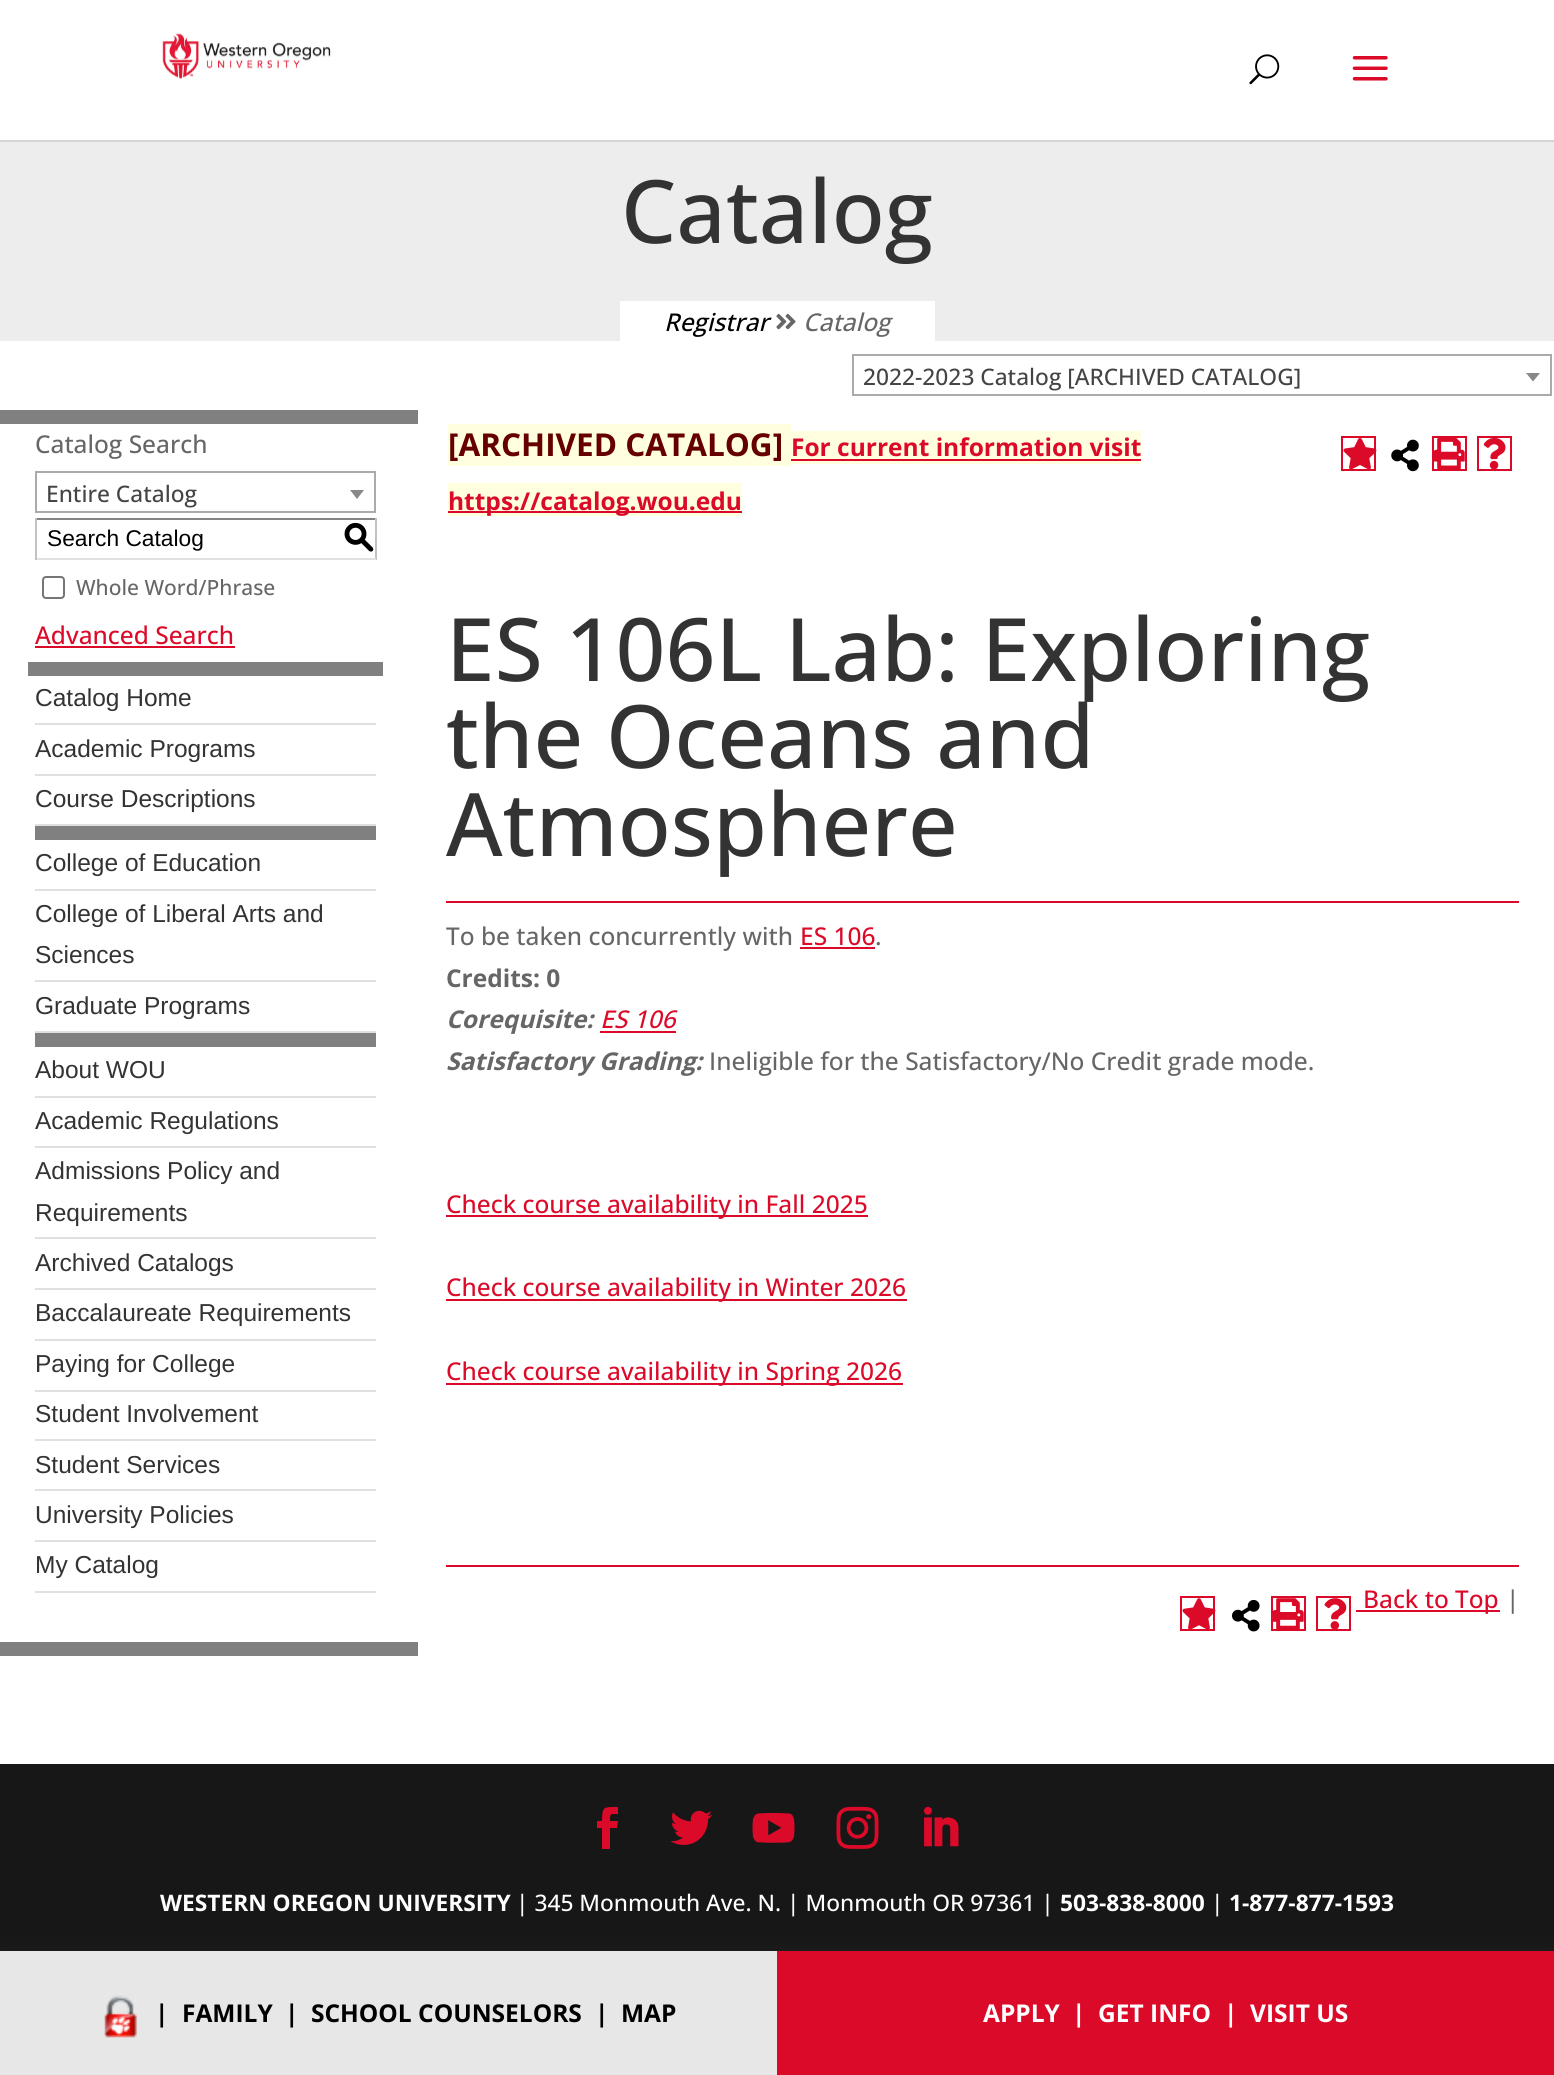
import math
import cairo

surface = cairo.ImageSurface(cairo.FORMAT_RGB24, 1554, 2075)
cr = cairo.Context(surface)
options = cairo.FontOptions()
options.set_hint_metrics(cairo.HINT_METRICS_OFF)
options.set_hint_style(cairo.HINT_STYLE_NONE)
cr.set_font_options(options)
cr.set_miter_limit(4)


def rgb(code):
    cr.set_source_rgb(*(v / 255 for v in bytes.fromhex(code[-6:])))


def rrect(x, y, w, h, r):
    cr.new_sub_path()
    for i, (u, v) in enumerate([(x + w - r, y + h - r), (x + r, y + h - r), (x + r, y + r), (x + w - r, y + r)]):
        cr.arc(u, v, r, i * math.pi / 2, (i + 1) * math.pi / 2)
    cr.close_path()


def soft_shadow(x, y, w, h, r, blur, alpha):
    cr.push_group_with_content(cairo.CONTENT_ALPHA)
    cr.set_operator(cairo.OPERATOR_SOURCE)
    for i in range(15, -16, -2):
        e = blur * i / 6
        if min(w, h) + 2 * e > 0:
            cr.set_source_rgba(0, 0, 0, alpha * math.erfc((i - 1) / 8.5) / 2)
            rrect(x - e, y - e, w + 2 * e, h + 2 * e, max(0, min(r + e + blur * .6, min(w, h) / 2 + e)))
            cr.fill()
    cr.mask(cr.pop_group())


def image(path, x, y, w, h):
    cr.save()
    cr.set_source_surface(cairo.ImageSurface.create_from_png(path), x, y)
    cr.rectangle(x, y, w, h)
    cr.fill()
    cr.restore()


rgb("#ffffff")
cr.paint()
rgb("#d5d5d5")
cr.rectangle(0, 140, 1554, 2)
cr.fill()
image("img/1.png", 162, 33, 169, 47)
image("img/2.png", 1249, 54, 31, 31)
image("img/3.png", 1352, 56, 36, 25)
rgb("#ededed")
cr.rectangle(0, 142, 1554, 199)
cr.fill()
rgb("#ffffff")
cr.rectangle(620, 301, 315, 40)
cr.fill()
image("img/4.png", 776, 313, 20, 17)
cr.rectangle(853, 355, 698, 40)
rgb("#aaaaaa")
cr.stroke()
rgb("#888888")
cr.new_path()
cr.move_to(1526, 373)
cr.line_to(1540, 373)
cr.line_to(1533, 381.5)
cr.close_path()
cr.fill()
rgb("#808080")
cr.rectangle(0, 410, 418, 14)
cr.fill()
cr.rectangle(0, 1642, 418, 14)
cr.fill()
cr.rectangle(36, 472, 339, 40)
rgb("#aaaaaa")
cr.stroke()
rgb("#888888")
cr.new_path()
cr.move_to(350, 490)
cr.line_to(364, 490)
cr.line_to(357, 499)
cr.close_path()
cr.fill()
for x, y, w, h, color in [
    (35, 518, 341, 2, "#848484"),
    (375, 518, 2, 42, "#c1c1c1"),
    (35, 558, 341, 2, "#e1e1e1"),
    (35, 518, 2, 42, "#c1c1c1"),
]:
    rgb(color)
    cr.rectangle(x, y, w, h)
    cr.fill()
rrect(43, 577, 21, 21, 3)
rgb("#767676")
cr.stroke()
for x, y, w, h, color in [
    (35, 646, 200, 2, "#db0a29"),
    (28, 662, 355, 14, "#808080"),
    (35, 723, 341, 2, "#e0e0e0"),
    (35, 774, 341, 2, "#e0e0e0"),
    (35, 824, 341, 2, "#e0e0e0"),
    (35, 826, 341, 14, "#808080"),
    (35, 889, 341, 2, "#e0e0e0"),
    (35, 980, 341, 2, "#e0e0e0"),
    (35, 1031, 341, 2, "#e0e0e0"),
    (35, 1033, 341, 14, "#808080"),
    (35, 1096, 341, 2, "#e0e0e0"),
    (35, 1146, 341, 2, "#e0e0e0"),
    (35, 1237, 341, 2, "#e0e0e0"),
    (35, 1288, 341, 2, "#e0e0e0"),
    (35, 1339, 341, 2, "#e0e0e0"),
    (35, 1390, 341, 2, "#e0e0e0"),
    (35, 1439, 341, 2, "#e0e0e0"),
    (35, 1489, 341, 2, "#e0e0e0"),
    (35, 1540, 341, 2, "#e0e0e0"),
    (35, 1591, 341, 2, "#e0e0e0"),
    (448, 424, 343, 42, "#ffffe0"),
    (791, 431, 350, 33, "#ffffe0"),
    (791, 459, 350, 2, "#db0a29"),
]:
    rgb(color)
    cr.rectangle(x, y, w, h)
    cr.fill()
cr.rectangle(1342, 437, 33, 33)
cr.stroke()
image("img/5.png", 1343, 438, 34, 31)
image("img/6.png", 1391, 439, 28, 33)
cr.rectangle(1433, 437, 33, 33)
cr.stroke()
image("img/7.png", 1434, 438, 31, 31)
cr.rectangle(1478, 437, 33, 33)
cr.stroke()
image("img/8.png", 1483, 438, 23, 31)
for x, y, w, h, color in [
    (448, 483, 294, 33, "#ffffe0"),
    (448, 511, 294, 2, "#db0a29"),
    (446, 901, 1073, 2, "#db0a29"),
    (800, 947, 75, 2, "#db0a29"),
    (600, 1031, 76, 2, "#db0a29"),
    (446, 1215, 422, 2, "#db0a29"),
    (446, 1299, 461, 2, "#db0a29"),
    (446, 1383, 457, 2, "#db0a29"),
    (446, 1565, 1073, 2, "#db0a29"),
]:
    rgb(color)
    cr.rectangle(x, y, w, h)
    cr.fill()
cr.rectangle(1181, 1597, 33, 33)
cr.stroke()
image("img/9.png", 1182, 1598, 34, 31)
image("img/10.png", 1232, 1599, 28, 33)
cr.rectangle(1272, 1597, 33, 33)
cr.stroke()
image("img/11.png", 1273, 1598, 31, 31)
cr.rectangle(1317, 1597, 33, 33)
cr.stroke()
image("img/12.png", 1324, 1598, 23, 31)
cr.rectangle(1356, 1610, 144, 2)
cr.fill()
rgb("#171717")
cr.rectangle(0, 1764, 1554, 187)
cr.fill()
rgb("#db0a29")
cr.new_path()
cr.move_to(602, 1849)
cr.line_to(610, 1849)
cr.line_to(610, 1828)
cr.line_to(617, 1828)
cr.line_to(618, 1821)
cr.line_to(610, 1821)
cr.curve_to(610, 1813, 610, 1814, 618, 1814)
cr.line_to(618, 1807)
cr.curve_to(604, 1807, 602, 1806, 602, 1821)
cr.line_to(597, 1821)
cr.line_to(597, 1828)
cr.line_to(602, 1828)
cr.close_path()
cr.fill()
image("img/13.png", 670, 1810, 42, 35)
image("img/14.png", 752, 1813, 43, 30)
image("img/15.png", 836, 1806, 43, 43)
image("img/16.png", 924, 1806, 35, 41)
rgb("#282828")
soft_shadow(2, 1953, 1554, 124, 0, 13, 0.55)
rgb("#db0a29")
cr.rectangle(777, 1951, 777, 124)
cr.fill()
rgb("#e7e7e7")
cr.rectangle(0, 1951, 777, 124)
cr.fill()
image("img/17.png", 104, 1995, 33, 43)
cr.select_font_face("Open Sans Medium")
cr.set_font_size(87.5)
rgb("#333333")
cr.move_to(621, 243)
cr.show_text("Catalog")
cr.select_font_face("Open Sans Medium", cairo.FONT_SLANT_ITALIC)
cr.set_font_size(24.5)
rgb("#000000")
cr.move_to(664, 331)
cr.show_text("Registrar")
rgb("#666666")
cr.move_to(803, 331)
cr.show_text("Catalog")
cr.select_font_face("Open Sans Medium")
cr.set_font_size(22.75)
rgb("#444444")
cr.move_to(863, 385)
cr.show_text("2022-2023 Catalog [ARCHIVED CATALOG]")
cr.set_font_size(24.5)
rgb("#666666")
cr.move_to(35, 453)
cr.show_text("Catalog Search")
cr.set_font_size(22.75)
rgb("#444444")
cr.move_to(46, 502)
cr.show_text("Entire Catalog")
cr.select_font_face("Liberation Sans")
rgb("#000000")
cr.move_to(47, 546)
cr.show_text("Search Catalog")
cr.select_font_face("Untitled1 Medium")
cr.set_font_size(31.5)
cr.move_to(343, 547)
cr.show_text("S")
cr.select_font_face("Open Sans Medium")
cr.set_font_size(21)
rgb("#666666")
cr.move_to(76, 595)
cr.show_text("Whole Word/Phrase")
cr.set_font_size(24.5)
rgb("#db0a29")
cr.move_to(35, 644)
cr.show_text("Advanced Search")
cr.select_font_face("Arimo")
rgb("#333333")
for x, y, s in [
    (35, 706, "Catalog Home"),
    (35, 757, "Academic Programs"),
    (35, 807, "Course Descriptions"),
    (35, 871, "College of Education"),
    (35, 922, "College of Liberal Arts and"),
    (35, 963, "Sciences"),
    (35, 1014, "Graduate Programs"),
    (35, 1078, "About WOU"),
    (35, 1129, "Academic Regulations"),
    (35, 1179, "Admissions Policy and"),
    (35, 1221, "Requirements"),
    (35, 1271, "Archived Catalogs"),
    (35, 1321, "Baccalaureate Requirements"),
    (35, 1372, "Paying for College"),
    (35, 1422, "Student Involvement"),
    (35, 1473, "Student Services"),
    (35, 1523, "University Policies"),
    (35, 1573, "My Catalog"),
]:
    cr.move_to(x, y)
    cr.show_text(s)
cr.select_font_face("Open Sans", cairo.FONT_SLANT_NORMAL, cairo.FONT_WEIGHT_BOLD)
cr.set_font_size(31.5)
rgb("#660000")
cr.move_to(448, 456)
cr.show_text("[ARCHIVED CATALOG]")
cr.set_font_size(24.5)
rgb("#db0a29")
cr.move_to(791, 456)
cr.show_text("For current information visit")
cr.move_to(448, 510)
cr.show_text("https://catalog.wou.edu")
cr.select_font_face("Open Sans Medium")
cr.set_font_size(87.5)
rgb("#333333")
for x, y, s in [
    (446, 681, "ES 106L Lab: Exploring"),
    (446, 768, "the Oceans and"),
    (446, 856, "Atmosphere"),
]:
    cr.move_to(x, y)
    cr.show_text(s)
cr.set_font_size(24.5)
rgb("#666666")
cr.move_to(446, 945)
cr.show_text("To be taken concurrently with")
rgb("#db0a29")
cr.move_to(800, 945)
cr.show_text("ES 106")
rgb("#666666")
cr.move_to(875, 945)
cr.show_text(".")
cr.select_font_face("Open Sans", cairo.FONT_SLANT_NORMAL, cairo.FONT_WEIGHT_BOLD)
cr.move_to(446, 987)
cr.show_text("Credits: 0")
cr.select_font_face("Open Sans", cairo.FONT_SLANT_ITALIC, cairo.FONT_WEIGHT_BOLD)
cr.move_to(446, 1028)
cr.show_text("Corequisite:")
cr.select_font_face("Open Sans Medium", cairo.FONT_SLANT_ITALIC)
rgb("#db0a29")
cr.move_to(600, 1028)
cr.show_text("ES 106")
cr.select_font_face("Open Sans", cairo.FONT_SLANT_ITALIC, cairo.FONT_WEIGHT_BOLD)
rgb("#666666")
cr.move_to(446, 1070)
cr.show_text("Satisfactory Grading:")
cr.select_font_face("Open Sans Medium")
cr.move_to(709, 1070)
cr.show_text("Ineligible for the Satisfactory/No Credit grade mode.")
rgb("#db0a29")
for x, y, s in [
    (446, 1213, "Check course availability in Fall 2025"),
    (446, 1296, "Check course availability in Winter 2026"),
    (446, 1380, "Check course availability in Spring 2026"),
    (1363, 1608, "Back to Top"),
]:
    cr.move_to(x, y)
    cr.show_text(s)
rgb("#666666")
cr.move_to(1506, 1608)
cr.show_text("|")
cr.select_font_face("Open Sans", cairo.FONT_SLANT_NORMAL, cairo.FONT_WEIGHT_BOLD)
cr.set_font_size(22.75)
rgb("#ffffff")
cr.move_to(160, 1911)
cr.show_text("WESTERN OREGON UNIVERSITY")
cr.select_font_face("Open Sans Medium")
cr.move_to(516, 1911)
cr.show_text("| 345 Monmouth Ave. N. | Monmouth OR 97361 |")
cr.select_font_face("Open Sans", cairo.FONT_SLANT_NORMAL, cairo.FONT_WEIGHT_BOLD)
cr.move_to(1060, 1911)
cr.show_text("503-838-8000")
cr.select_font_face("Open Sans Medium")
cr.move_to(1211, 1911)
cr.show_text("|")
cr.select_font_face("Open Sans", cairo.FONT_SLANT_NORMAL, cairo.FONT_WEIGHT_BOLD)
cr.move_to(1229, 1911)
cr.show_text("1-877-877-1593")
cr.set_font_size(24.5)
rgb("#000000")
for x, y, s in [
    (155, 2022, "|"),
    (182, 2022, "FAMILY"),
    (285, 2022, "|"),
    (311, 2022, "SCHOOL COUNSELORS"),
    (595, 2022, "|"),
    (621, 2022, "MAP"),
]:
    cr.move_to(x, y)
    cr.show_text(s)
rgb("#ffffff")
for x, y, s in [
    (983, 2022, "APPLY"),
    (1072, 2022, "|"),
    (1098, 2022, "GET INFO"),
    (1224, 2022, "|"),
    (1250, 2022, "VISIT US"),
]:
    cr.move_to(x, y)
    cr.show_text(s)
surface.write_to_png("page.png")
